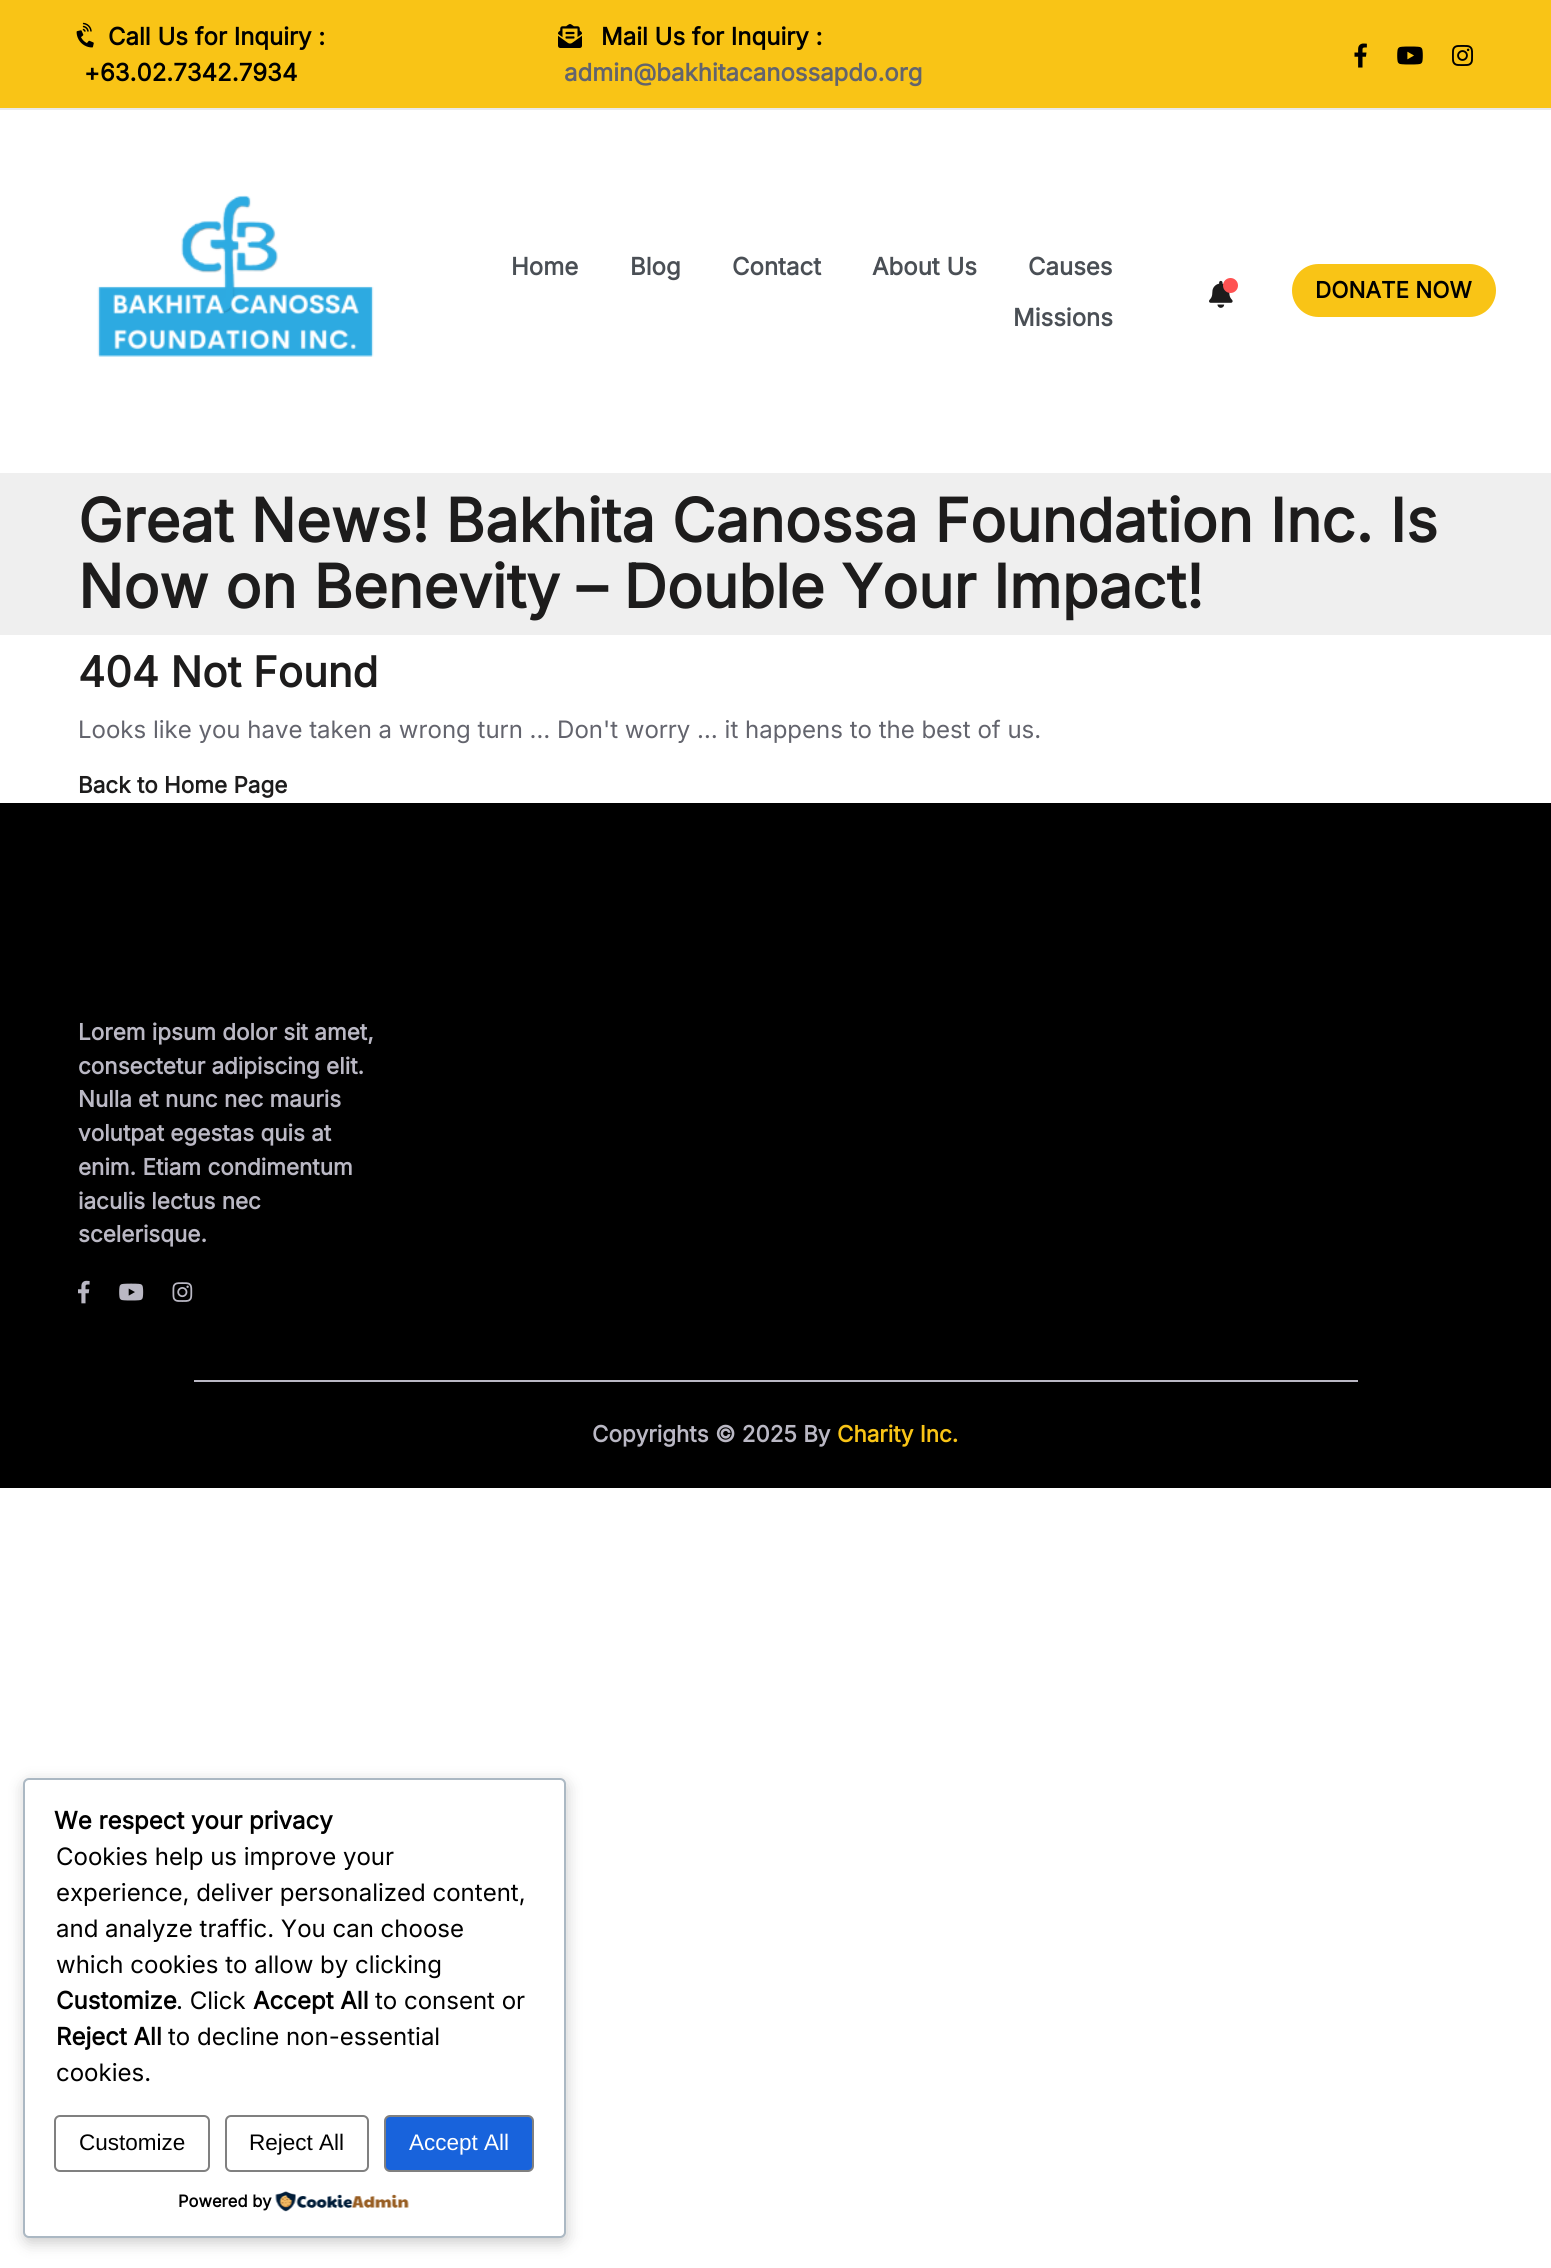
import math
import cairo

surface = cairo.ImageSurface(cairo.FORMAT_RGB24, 1551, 2268)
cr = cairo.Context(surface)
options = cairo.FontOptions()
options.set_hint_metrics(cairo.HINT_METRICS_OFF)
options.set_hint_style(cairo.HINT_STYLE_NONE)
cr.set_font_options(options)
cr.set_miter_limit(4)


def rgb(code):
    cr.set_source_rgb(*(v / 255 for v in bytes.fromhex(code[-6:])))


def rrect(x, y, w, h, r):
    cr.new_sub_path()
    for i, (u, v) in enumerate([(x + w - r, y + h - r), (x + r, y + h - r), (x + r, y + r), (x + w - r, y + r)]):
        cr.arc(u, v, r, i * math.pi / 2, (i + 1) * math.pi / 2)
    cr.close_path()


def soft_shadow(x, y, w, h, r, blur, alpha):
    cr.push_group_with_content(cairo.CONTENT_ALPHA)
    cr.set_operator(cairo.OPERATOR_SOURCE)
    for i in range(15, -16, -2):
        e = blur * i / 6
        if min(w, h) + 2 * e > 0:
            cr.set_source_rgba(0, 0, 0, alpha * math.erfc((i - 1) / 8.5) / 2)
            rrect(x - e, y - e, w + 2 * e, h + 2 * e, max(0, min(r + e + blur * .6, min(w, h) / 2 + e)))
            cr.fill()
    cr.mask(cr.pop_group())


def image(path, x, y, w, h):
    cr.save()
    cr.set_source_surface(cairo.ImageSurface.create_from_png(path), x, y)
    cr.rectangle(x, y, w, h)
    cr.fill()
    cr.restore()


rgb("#ffffff")
cr.paint()
rgb("#f9c416")
cr.rectangle(0, 0, 1551, 108)
cr.fill()
image("img/1.png", 76, 22, 18, 26)
image("img/2.png", 558, 24, 24, 24)
image("img/3.png", 1354, 43, 13, 25)
image("img/4.png", 1397, 46, 26, 19)
image("img/5.png", 1452, 45, 21, 21)
rgb("#e9eaea")
cr.rectangle(0, 108, 1551, 2)
cr.fill()
image("img/6.png", 97, 195, 277, 162)
image("img/7.png", 1209, 280, 24, 28)
rgb("#ff5252")
cr.arc(1230.5, 285.5, 7.5, 0, 2 * math.pi)
cr.fill()
rgb("#f9c416")
rrect(1292, 264, 204, 53, 26.5)
cr.fill()
rgb("#efefef")
cr.rectangle(0, 473, 1551, 162)
cr.fill()
rgb("#000000")
cr.rectangle(0, 803, 1551, 685)
cr.fill()
image("img/8.png", 78, 1280, 12, 24)
image("img/9.png", 119, 1283, 25, 18)
image("img/10.png", 172, 1282, 21, 20)
rgb("#bab8c4")
cr.rectangle(194, 1380, 1164, 2)
cr.fill()
rgb("#000000")
soft_shadow(24, 1782, 543, 461, 6, 7.5, 0.2)
rgb("#ffffff")
rrect(24, 1779, 541, 458, 5)
cr.fill_preserve()
rgb("#abb8c3")
cr.stroke()
rrect(55, 2116, 154, 55, 5)
rgb("#808080")
cr.stroke()
rrect(226, 2116, 142, 55, 5)
cr.stroke()
rgb("#1863dc")
rrect(385, 2116, 148, 55, 5)
cr.fill_preserve()
rgb("#808080")
cr.stroke()
image("img/11.png", 275, 2191, 134, 21)
cr.select_font_face("Inter", cairo.FONT_SLANT_NORMAL, cairo.FONT_WEIGHT_BOLD)
cr.set_font_size(24)
rgb("#000000")
for x, y, s in [
    (108, 45, "Call Us for Inquiry :"),
    (84, 81, "+63.02.7342.7934"),
    (601, 45, "Mail Us for Inquiry :"),
]:
    cr.move_to(x, y)
    cr.show_text(s)
rgb("#63646d")
cr.move_to(564, 81)
cr.show_text("admin@bakhitacanossapdo.org")
rgb("#4a4f55")
for x, y, s in [
    (511, 275, "Home"),
    (630, 275, "Blog"),
    (732, 275, "Contact"),
    (872, 275, "About Us"),
    (1028, 275, "Causes"),
    (1013, 326, "Missions"),
]:
    cr.move_to(x, y)
    cr.show_text(s)
cr.set_font_size(22.5)
rgb("#000000")
cr.move_to(1315, 298)
cr.show_text("DONATE NOW")
cr.set_font_size(60)
rgb("#1d1c1c")
cr.move_to(78, 542)
cr.show_text("Great News! Bakhita Canossa Foundation Inc. Is")
cr.move_to(78, 608)
cr.show_text("Now on Benevity – Double Your Impact!")
cr.set_font_size(42)
cr.move_to(78, 687)
cr.show_text("404 Not Found")
cr.select_font_face("Inter")
cr.set_font_size(24)
rgb("#63646d")
cr.move_to(78, 738)
cr.show_text("Looks like you have taken a wrong turn … Don't worry … it happens to the best of us.")
cr.select_font_face("Inter", cairo.FONT_SLANT_NORMAL, cairo.FONT_WEIGHT_BOLD)
cr.set_font_size(22.5)
rgb("#1d1c1c")
cr.move_to(78, 793)
cr.show_text("Back to Home Page")
rgb("#bab8c4")
for x, y, s in [
    (78, 1040, "Lorem ipsum dolor sit amet,"),
    (78, 1074, "consectetur adipiscing elit."),
    (78, 1107, "Nulla et nunc nec mauris"),
    (78, 1141, "volutpat egestas quis at"),
    (78, 1175, "enim. Etiam condimentum"),
    (78, 1209, "iaculis lectus nec"),
    (78, 1242, "scelerisque."),
    (592, 1442, "Copyrights © 2025 By"),
]:
    cr.move_to(x, y)
    cr.show_text(s)
rgb("#f9c416")
cr.move_to(837, 1442)
cr.show_text("Charity Inc.")
cr.set_font_size(24)
rgb("#000000")
cr.move_to(54, 1829)
cr.show_text("We respect your privacy")
cr.select_font_face("Inter")
for x, y, s in [
    (56, 1865, "Cookies help us improve your"),
    (56, 1901, "experience, deliver personalized content,"),
    (56, 1937, "and analyze traffic. You can choose"),
    (56, 1973, "which cookies to allow by clicking"),
]:
    cr.move_to(x, y)
    cr.show_text(s)
cr.select_font_face("Inter", cairo.FONT_SLANT_NORMAL, cairo.FONT_WEIGHT_BOLD)
cr.move_to(56, 2009)
cr.show_text("Customize")
cr.select_font_face("Inter")
cr.move_to(176, 2009)
cr.show_text(". Click")
cr.select_font_face("Inter", cairo.FONT_SLANT_NORMAL, cairo.FONT_WEIGHT_BOLD)
cr.move_to(253, 2009)
cr.show_text("Accept All")
cr.select_font_face("Inter")
cr.move_to(375, 2009)
cr.show_text("to consent or")
cr.select_font_face("Inter", cairo.FONT_SLANT_NORMAL, cairo.FONT_WEIGHT_BOLD)
cr.move_to(56, 2045)
cr.show_text("Reject All")
cr.select_font_face("Inter")
cr.move_to(168, 2045)
cr.show_text("to decline non-essential")
cr.move_to(56, 2081)
cr.show_text("cookies.")
cr.select_font_face("Liberation Sans")
cr.set_font_size(22.5)
cr.move_to(79, 2150)
cr.show_text("Customize")
cr.move_to(249, 2150)
cr.show_text("Reject All")
rgb("#ffffff")
cr.move_to(409, 2150)
cr.show_text("Accept All")
cr.select_font_face("Inter", cairo.FONT_SLANT_NORMAL, cairo.FONT_WEIGHT_BOLD)
cr.set_font_size(16.5)
rgb("#000000")
cr.move_to(178, 2207)
cr.show_text("Powered by")
surface.write_to_png("page.png")
